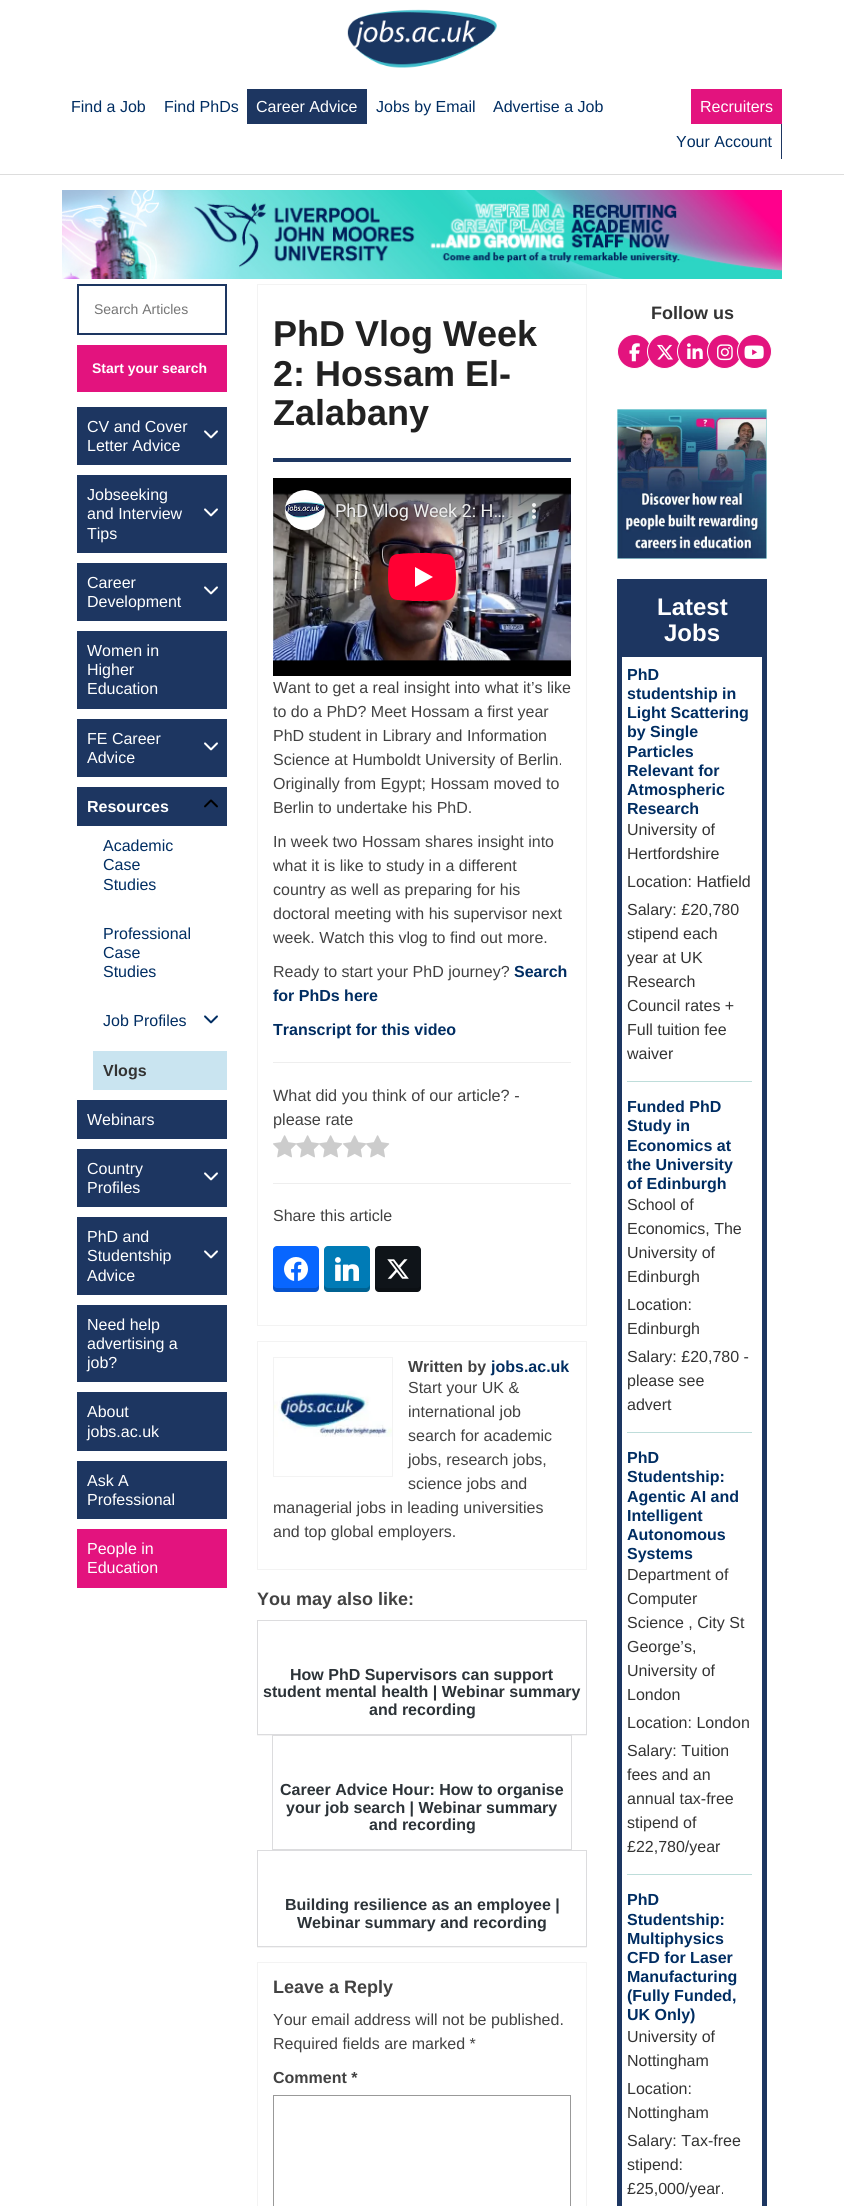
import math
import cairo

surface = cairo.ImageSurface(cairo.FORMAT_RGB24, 844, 2206)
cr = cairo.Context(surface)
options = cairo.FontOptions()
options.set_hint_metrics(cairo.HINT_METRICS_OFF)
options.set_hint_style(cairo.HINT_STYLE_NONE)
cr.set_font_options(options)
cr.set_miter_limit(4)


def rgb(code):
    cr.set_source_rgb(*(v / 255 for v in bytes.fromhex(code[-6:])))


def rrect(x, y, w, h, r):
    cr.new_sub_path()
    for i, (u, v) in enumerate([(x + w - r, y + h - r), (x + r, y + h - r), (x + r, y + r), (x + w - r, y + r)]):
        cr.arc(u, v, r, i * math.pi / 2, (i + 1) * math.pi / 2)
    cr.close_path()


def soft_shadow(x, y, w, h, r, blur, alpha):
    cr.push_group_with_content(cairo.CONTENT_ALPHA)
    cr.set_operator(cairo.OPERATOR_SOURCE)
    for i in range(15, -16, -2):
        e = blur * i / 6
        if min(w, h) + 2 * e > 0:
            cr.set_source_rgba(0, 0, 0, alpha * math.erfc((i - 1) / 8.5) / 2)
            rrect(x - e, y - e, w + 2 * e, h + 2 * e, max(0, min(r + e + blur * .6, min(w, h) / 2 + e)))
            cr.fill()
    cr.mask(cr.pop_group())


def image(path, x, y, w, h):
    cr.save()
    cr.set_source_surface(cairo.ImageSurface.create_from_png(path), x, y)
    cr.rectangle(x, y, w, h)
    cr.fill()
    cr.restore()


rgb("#ffffff")
cr.paint()
image("img/1.png", 347, 9, 150, 59)
for x, y, w, h, color in [
    (247, 89, 120, 35, "#1d3661"),
    (691, 89, 91, 35, "#e3137e"),
    (781, 124, 1, 35, "#1d3661"),
    (0, 174, 844, 1, "#dddddd"),
]:
    rgb(color)
    cr.rectangle(x, y, w, h)
    cr.fill()
image("img/2.png", 62, 190, 720, 89)
cr.rectangle(78, 285, 148, 49)
rgb("#1d3661")
cr.stroke()
rgb("#e3137e")
cr.rectangle(77, 345, 150, 47)
cr.fill()
rgb("#1d3661")
cr.rectangle(77, 407, 150, 58)
cr.fill()
image("img/3.png", 204, 430, 14, 9)
cr.rectangle(77, 475, 150, 78)
cr.fill()
image("img/3.png", 204, 508, 14, 9)
cr.rectangle(77, 563, 150, 58)
cr.fill()
image("img/3.png", 204, 586, 14, 9)
cr.rectangle(77, 631, 150, 78)
cr.fill()
cr.rectangle(77, 719, 150, 58)
cr.fill()
image("img/3.png", 204, 742, 14, 9)
cr.rectangle(77, 787, 150, 39)
cr.fill()
image("img/4.png", 204, 799, 14, 9)
image("img/5.png", 204, 1015, 14, 9)
for x, y, w, h, color in [
    (93, 1051, 134, 39, "#c9e4f0"),
    (77, 1100, 150, 39, "#1d3661"),
    (77, 1149, 150, 58, "#1d3661"),
]:
    rgb(color)
    cr.rectangle(x, y, w, h)
    cr.fill()
image("img/3.png", 204, 1172, 14, 9)
cr.rectangle(77, 1217, 150, 78)
cr.fill()
image("img/3.png", 204, 1250, 14, 9)
for x, y, w, h, color in [
    (77, 1305, 150, 77, "#1d3661"),
    (77, 1392, 150, 59, "#1d3661"),
    (77, 1461, 150, 58, "#1d3661"),
    (77, 1529, 150, 59, "#e3137e"),
]:
    rgb(color)
    cr.rectangle(x, y, w, h)
    cr.fill()
cr.rectangle(257.5, 284.5, 329, 1041)
rgb("#f3f3f3")
cr.set_line_width(1)
cr.stroke()
rgb("#1d3661")
cr.rectangle(273, 458, 298, 4)
cr.fill()
image("img/6.png", 273, 478, 298, 198)
rgb("#eeeeee")
cr.rectangle(273, 1062, 298, 1)
cr.fill()
image("img/7.png", 273, 1135, 24, 23)
image("img/8.png", 296, 1135, 24, 23)
image("img/8.png", 319, 1135, 24, 23)
image("img/7.png", 343, 1135, 24, 23)
image("img/8.png", 366, 1135, 24, 23)
cr.rectangle(273, 1183, 298, 1)
cr.fill()
rgb("#0866ff")
rrect(273, 1246, 46, 46, 4)
cr.fill()
cr.set_source_rgba(0, 0, 0, 0.2)
cr.new_path()
cr.move_to(273, 1284)
cr.curve_to(273, 1293, 274, 1292, 283, 1292)
cr.line_to(309, 1292)
cr.curve_to(318, 1292, 319, 1293, 319, 1284)
cr.curve_to(319, 1286, 317, 1288, 315, 1288)
cr.line_to(277, 1288)
cr.curve_to(275, 1288, 273, 1286, 273, 1284)
cr.close_path()
cr.fill()
image("img/9.png", 284, 1257, 24, 24)
rgb("#007bb6")
rrect(324, 1246, 46, 46, 4)
cr.fill()
cr.set_source_rgba(0, 0, 0, 0.2)
cr.new_path()
cr.move_to(324, 1284)
cr.curve_to(324, 1293, 325, 1292, 334, 1292)
cr.line_to(360, 1292)
cr.curve_to(369, 1292, 370, 1293, 370, 1284)
cr.curve_to(370, 1286, 368, 1288, 366, 1288)
cr.line_to(328, 1288)
cr.curve_to(326, 1288, 324, 1286, 324, 1284)
cr.close_path()
cr.fill()
image("img/10.png", 335, 1257, 24, 24)
rgb("#0f1419")
rrect(375, 1246, 46, 46, 4)
cr.fill()
cr.set_source_rgba(0, 0, 0, 0.2)
cr.new_path()
cr.move_to(375, 1284)
cr.curve_to(375, 1293, 376, 1292, 385, 1292)
cr.line_to(411, 1292)
cr.curve_to(420, 1292, 421, 1293, 421, 1284)
cr.curve_to(421, 1286, 419, 1288, 417, 1288)
cr.line_to(379, 1288)
cr.curve_to(377, 1288, 375, 1286, 375, 1284)
cr.close_path()
cr.fill()
image("img/11.png", 387, 1259, 22, 20)
cr.rectangle(257.5, 1341.5, 329, 228)
rgb("#f3f3f3")
cr.stroke()
cr.rectangle(273.5, 1357.5, 119, 119)
cr.stroke()
image("img/12.png", 274, 1390, 118, 47)
cr.save()
cr.rectangle(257, 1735, 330, 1)
cr.clip()
rgb("#000000")
soft_shadow(257, 1621, 330, 115, 0, 0.5, 0.05)
cr.restore()
cr.rectangle(257.5, 1620.5, 329, 114)
rgb("#dcdcde")
cr.stroke()
cr.rectangle(272.5, 1735.5, 299, 114)
cr.stroke()
cr.save()
cr.rectangle(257, 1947, 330, 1)
cr.clip()
rgb("#000000")
soft_shadow(257, 1851, 330, 97, 0, 0.5, 0.05)
cr.restore()
cr.rectangle(257.5, 1850.5, 329, 96)
cr.stroke()
cr.rectangle(257.5, 1962.5, 329, 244)
rgb("#f3f3f3")
cr.stroke()
cr.rectangle(273.5, 2095.5, 297, 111)
rgb("#999999")
cr.stroke()
rgb("#e3137e")
cr.arc(634.5, 351.5, 17, 0, 2 * math.pi)
cr.fill_preserve()
rgb("#ffffff")
cr.stroke()
image("img/13.png", 629, 343, 11, 19)
rgb("#e3137e")
cr.arc(664.5, 351.5, 17, 0, 2 * math.pi)
cr.fill_preserve()
rgb("#ffffff")
cr.stroke()
image("img/14.png", 657, 344, 16, 16)
rgb("#e3137e")
cr.arc(694.5, 351.5, 17, 0, 2 * math.pi)
cr.fill_preserve()
rgb("#ffffff")
cr.stroke()
image("img/15.png", 687, 343, 16, 16)
rgb("#e3137e")
cr.arc(724.5, 351.5, 17, 0, 2 * math.pi)
cr.fill_preserve()
rgb("#ffffff")
cr.stroke()
image("img/16.png", 717, 344, 16, 17)
rgb("#e3137e")
cr.arc(754.5, 351.5, 17, 0, 2 * math.pi)
cr.fill_preserve()
rgb("#ffffff")
cr.stroke()
image("img/17.png", 744, 345, 20, 14)
image("img/18.png", 617, 409, 150, 150)
cr.rectangle(619.5, 581.5, 145, 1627)
rgb("#1d3661")
cr.set_line_width(5)
cr.stroke()
for x, y, w, h, color in [
    (622, 584, 140, 73, "#1d3661"),
    (627, 1081, 125, 1, "#beddda"),
    (627, 1432, 125, 1, "#beddda"),
    (627, 1874, 125, 1, "#beddda"),
]:
    rgb(color)
    cr.rectangle(x, y, w, h)
    cr.fill()
cr.select_font_face("Liberation Sans")
cr.set_font_size(16)
rgb("#002d62")
cr.move_to(71, 112)
cr.show_text("Find a Job")
cr.move_to(164, 112)
cr.show_text("Find PhDs")
rgb("#ffffff")
cr.move_to(256, 112)
cr.show_text("Career Advice")
rgb("#002d62")
cr.move_to(376, 112)
cr.show_text("Jobs by Email")
cr.move_to(493, 112)
cr.show_text("Advertise a Job")
rgb("#ffffff")
cr.move_to(700, 112)
cr.show_text("Recruiters")
rgb("#002d62")
cr.move_to(676, 147)
cr.show_text("Your Account")
cr.set_font_size(14)
rgb("#757575")
cr.move_to(94, 314)
cr.show_text("Search Articles")
cr.select_font_face("Liberation Sans", cairo.FONT_SLANT_NORMAL, cairo.FONT_WEIGHT_BOLD)
rgb("#ffffff")
cr.move_to(92, 373)
cr.show_text("Start your search")
cr.select_font_face("Liberation Sans")
cr.set_font_size(16)
for x, y, s in [
    (87, 432, "CV and Cover"),
    (87, 451, "Letter Advice"),
    (87, 500, "Jobseeking"),
    (87, 519, "and Interview"),
    (87, 539, "Tips"),
    (87, 588, "Career"),
    (87, 607, "Development"),
    (87, 656, "Women in"),
    (87, 675, "Higher"),
    (87, 694, "Education"),
    (87, 744, "FE Career"),
    (87, 763, "Advice"),
]:
    cr.move_to(x, y)
    cr.show_text(s)
cr.select_font_face("Liberation Sans", cairo.FONT_SLANT_NORMAL, cairo.FONT_WEIGHT_BOLD)
cr.move_to(87, 812)
cr.show_text("Resources")
cr.select_font_face("Liberation Sans")
rgb("#002d62")
for x, y, s in [
    (103, 851, "Academic"),
    (103, 870, "Case"),
    (103, 890, "Studies"),
    (103, 939, "Professional"),
    (103, 958, "Case"),
    (103, 977, "Studies"),
    (103, 1026, "Job Profiles"),
]:
    cr.move_to(x, y)
    cr.show_text(s)
cr.select_font_face("Liberation Sans", cairo.FONT_SLANT_NORMAL, cairo.FONT_WEIGHT_BOLD)
rgb("#333333")
cr.move_to(103, 1076)
cr.show_text("Vlogs")
cr.select_font_face("Liberation Sans")
rgb("#ffffff")
for x, y, s in [
    (87, 1125, "Webinars"),
    (87, 1174, "Country"),
    (87, 1193, "Profiles"),
    (87, 1242, "PhD and"),
    (87, 1261, "Studentship"),
    (87, 1281, "Advice"),
    (87, 1330, "Need help"),
    (87, 1349, "advertising a"),
    (87, 1368, "job?"),
    (87, 1417, "About"),
    (87, 1437, "jobs.ac.uk"),
    (87, 1486, "Ask A"),
    (87, 1505, "Professional"),
    (87, 1554, "People in"),
    (87, 1573, "Education"),
]:
    cr.move_to(x, y)
    cr.show_text(s)
cr.select_font_face("Liberation Sans", cairo.FONT_SLANT_NORMAL, cairo.FONT_WEIGHT_BOLD)
cr.set_font_size(36)
rgb("#212121")
for x, y, s in [
    (273, 346, "PhD Vlog Week"),
    (273, 386, "2: Hossam El-"),
    (273, 425, "Zalabany"),
]:
    cr.move_to(x, y)
    cr.show_text(s)
cr.select_font_face("Liberation Sans")
cr.set_font_size(16)
rgb("#424242")
for x, y, s in [
    (273, 693, "Want to get a real insight into what it’s like"),
    (273, 717, "to do a PhD? Meet Hossam a first year"),
    (273, 741, "PhD student in Library and Information"),
    (273, 765, "Science at Humboldt University of Berlin."),
    (273, 789, "Originally from Egypt; Hossam moved to"),
    (273, 813, "Berlin to undertake his PhD."),
    (273, 847, "In week two Hossam shares insight into"),
    (273, 871, "what it is like to study in a different"),
    (273, 895, "country as well as preparing for his"),
    (273, 919, "doctoral meeting with his supervisor next"),
    (273, 943, "week. Watch this vlog to find out more."),
    (273, 977, "Ready to start your PhD journey?"),
]:
    cr.move_to(x, y)
    cr.show_text(s)
cr.select_font_face("Liberation Sans", cairo.FONT_SLANT_NORMAL, cairo.FONT_WEIGHT_BOLD)
rgb("#002d62")
for x, y, s in [
    (514, 977, "Search"),
    (273, 1001, "for PhDs here"),
    (273, 1035, "Transcript for this video"),
]:
    cr.move_to(x, y)
    cr.show_text(s)
cr.select_font_face("Liberation Sans")
cr.set_font_size(16.25)
rgb("#424242")
cr.move_to(273, 1101)
cr.show_text("What did you think of our article? -")
cr.move_to(273, 1125)
cr.show_text("please rate")
cr.set_font_size(16)
cr.move_to(273, 1221)
cr.show_text("Share this article")
cr.select_font_face("Liberation Sans", cairo.FONT_SLANT_NORMAL, cairo.FONT_WEIGHT_BOLD)
cr.move_to(408, 1372)
cr.show_text("Written by")
rgb("#002d62")
cr.move_to(491, 1372)
cr.show_text("jobs.ac.uk")
cr.select_font_face("Liberation Sans")
rgb("#424242")
for x, y, s in [
    (408, 1393, "Start your UK &"),
    (408, 1417, "international job"),
    (408, 1441, "search for academic"),
    (408, 1465, "jobs, research jobs,"),
    (408, 1489, "science jobs and"),
    (273, 1513, "managerial jobs in leading universities"),
    (273, 1537, "and top global employers."),
]:
    cr.move_to(x, y)
    cr.show_text(s)
cr.select_font_face("Liberation Sans", cairo.FONT_SLANT_NORMAL, cairo.FONT_WEIGHT_BOLD)
cr.set_font_size(18)
cr.move_to(257, 1605)
cr.show_text("You may also like:")
cr.set_font_size(16)
rgb("#2c3338")
for x, y, s in [
    (290, 1680, "How PhD Supervisors can support"),
    (263, 1697, "student mental health | Webinar summary"),
    (369, 1715, "and recording"),
    (280, 1795, "Career Advice Hour: How to organise"),
    (286, 1813, "your job search | Webinar summary"),
    (369, 1830, "and recording"),
    (285, 1910, "Building resilience as an employee |"),
    (297, 1928, "Webinar summary and recording"),
]:
    cr.move_to(x, y)
    cr.show_text(s)
cr.set_font_size(18)
rgb("#424242")
cr.move_to(273, 1993)
cr.show_text("Leave a Reply")
cr.select_font_face("Liberation Sans")
cr.set_font_size(16)
cr.move_to(273, 2025)
cr.show_text("Your email address will not be published.")
cr.move_to(273, 2049)
cr.show_text("Required fields are marked *")
cr.select_font_face("Liberation Sans", cairo.FONT_SLANT_NORMAL, cairo.FONT_WEIGHT_BOLD)
cr.move_to(273, 2083)
cr.show_text("Comment *")
cr.set_font_size(18)
rgb("#333333")
cr.move_to(651, 319)
cr.show_text("Follow us")
cr.set_font_size(24)
rgb("#ffffff")
cr.move_to(657, 615)
cr.show_text("Latest")
cr.move_to(664, 641)
cr.show_text("Jobs")
cr.set_font_size(16)
rgb("#002d62")
for x, y, s in [
    (627, 680, "PhD"),
    (627, 699, "studentship in"),
    (627, 718, "Light Scattering"),
    (627, 737, "by Single"),
    (627, 757, "Particles"),
    (627, 776, "Relevant for"),
    (627, 795, "Atmospheric"),
    (627, 814, "Research"),
]:
    cr.move_to(x, y)
    cr.show_text(s)
cr.select_font_face("Liberation Sans")
rgb("#333333")
for x, y, s in [
    (627, 835, "University of"),
    (627, 859, "Hertfordshire"),
    (627, 887, "Location: Hatfield"),
    (627, 915, "Salary: £20,780"),
    (627, 939, "stipend each"),
    (627, 963, "year at UK"),
    (627, 987, "Research"),
    (627, 1011, "Council rates +"),
    (627, 1035, "Full tuition fee"),
    (627, 1059, "waiver"),
]:
    cr.move_to(x, y)
    cr.show_text(s)
cr.select_font_face("Liberation Sans", cairo.FONT_SLANT_NORMAL, cairo.FONT_WEIGHT_BOLD)
rgb("#002d62")
for x, y, s in [
    (627, 1112, "Funded PhD"),
    (627, 1131, "Study in"),
    (627, 1151, "Economics at"),
    (627, 1170, "the University"),
    (627, 1189, "of Edinburgh"),
]:
    cr.move_to(x, y)
    cr.show_text(s)
cr.select_font_face("Liberation Sans")
rgb("#333333")
for x, y, s in [
    (627, 1210, "School of"),
    (627, 1234, "Economics, The"),
    (627, 1258, "University of"),
    (627, 1282, "Edinburgh"),
    (627, 1310, "Location:"),
    (627, 1334, "Edinburgh"),
    (627, 1362, "Salary: £20,780 -"),
    (627, 1386, "please see"),
    (627, 1410, "advert"),
]:
    cr.move_to(x, y)
    cr.show_text(s)
cr.select_font_face("Liberation Sans", cairo.FONT_SLANT_NORMAL, cairo.FONT_WEIGHT_BOLD)
rgb("#002d62")
for x, y, s in [
    (627, 1463, "PhD"),
    (627, 1482, "Studentship:"),
    (627, 1502, "Agentic AI and"),
    (627, 1521, "Intelligent"),
    (627, 1540, "Autonomous"),
    (627, 1559, "Systems"),
]:
    cr.move_to(x, y)
    cr.show_text(s)
cr.select_font_face("Liberation Sans")
rgb("#333333")
for x, y, s in [
    (627, 1580, "Department of"),
    (627, 1604, "Computer"),
    (627, 1628, "Science , City St"),
    (627, 1652, "George’s,"),
    (627, 1676, "University of"),
    (627, 1700, "London"),
    (627, 1728, "Location: London"),
    (627, 1756, "Salary: Tuition"),
    (627, 1780, "fees and an"),
    (627, 1804, "annual tax-free"),
    (627, 1828, "stipend of"),
    (627, 1852, "£22,780/year"),
]:
    cr.move_to(x, y)
    cr.show_text(s)
cr.select_font_face("Liberation Sans", cairo.FONT_SLANT_NORMAL, cairo.FONT_WEIGHT_BOLD)
rgb("#002d62")
for x, y, s in [
    (627, 1905, "PhD"),
    (627, 1925, "Studentship:"),
    (627, 1944, "Multiphysics"),
    (627, 1963, "CFD for Laser"),
    (627, 1982, "Manufacturing"),
    (627, 2001, "(Fully Funded,"),
    (627, 2020, "UK Only)"),
]:
    cr.move_to(x, y)
    cr.show_text(s)
cr.select_font_face("Liberation Sans")
rgb("#333333")
for x, y, s in [
    (627, 2042, "University of"),
    (627, 2066, "Nottingham"),
    (627, 2094, "Location:"),
    (627, 2118, "Nottingham"),
    (627, 2146, "Salary: Tax-free"),
    (627, 2170, "stipend:"),
    (627, 2194, "£25,000/year."),
]:
    cr.move_to(x, y)
    cr.show_text(s)
surface.write_to_png("page.png")
